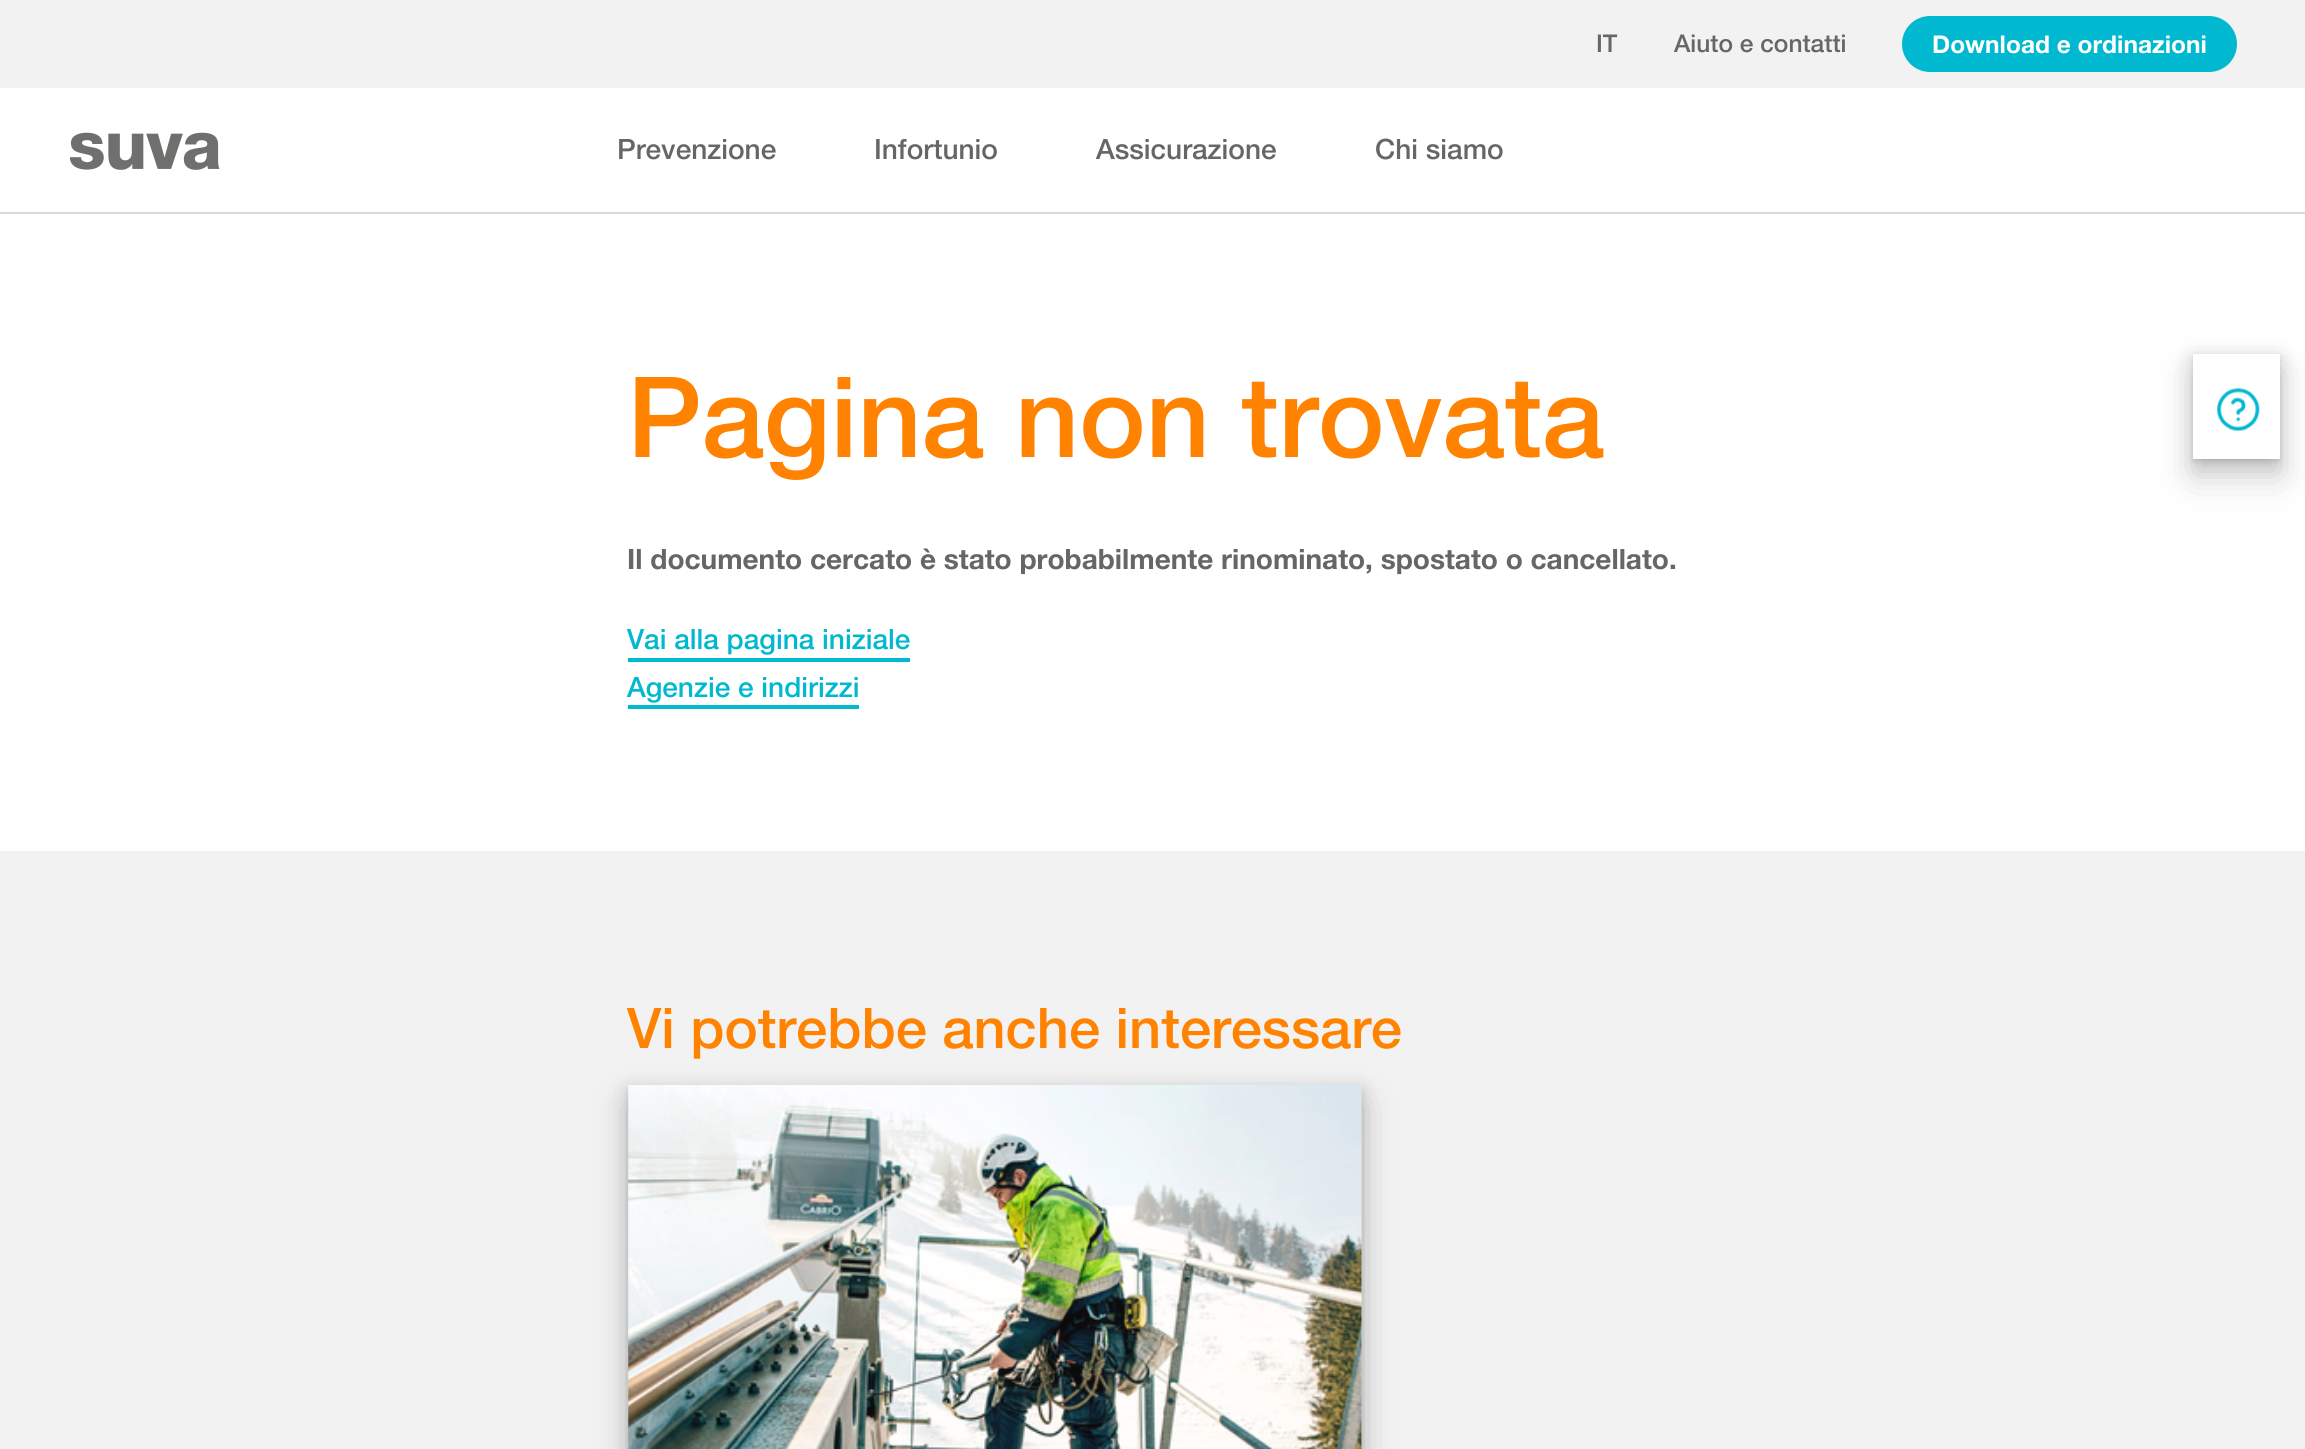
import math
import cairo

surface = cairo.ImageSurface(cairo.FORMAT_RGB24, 2305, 1449)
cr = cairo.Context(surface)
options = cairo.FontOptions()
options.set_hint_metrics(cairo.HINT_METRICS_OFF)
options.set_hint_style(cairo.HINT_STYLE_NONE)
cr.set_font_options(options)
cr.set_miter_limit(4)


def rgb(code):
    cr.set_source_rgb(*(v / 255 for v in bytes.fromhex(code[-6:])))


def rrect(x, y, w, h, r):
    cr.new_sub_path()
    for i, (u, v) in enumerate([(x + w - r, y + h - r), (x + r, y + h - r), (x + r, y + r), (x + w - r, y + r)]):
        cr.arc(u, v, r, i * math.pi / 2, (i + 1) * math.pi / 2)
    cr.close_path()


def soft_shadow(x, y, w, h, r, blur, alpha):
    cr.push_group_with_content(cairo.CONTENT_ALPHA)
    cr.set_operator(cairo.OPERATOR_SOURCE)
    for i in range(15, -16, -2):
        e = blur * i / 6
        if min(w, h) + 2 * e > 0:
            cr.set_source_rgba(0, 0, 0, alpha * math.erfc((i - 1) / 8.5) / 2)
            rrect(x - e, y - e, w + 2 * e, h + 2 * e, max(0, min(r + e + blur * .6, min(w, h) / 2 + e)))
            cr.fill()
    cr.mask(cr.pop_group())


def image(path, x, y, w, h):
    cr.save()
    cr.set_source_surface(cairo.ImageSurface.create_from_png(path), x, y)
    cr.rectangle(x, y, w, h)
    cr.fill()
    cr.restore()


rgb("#ffffff")
cr.paint()
rgb("#f2f2f2")
cr.rectangle(0, 0, 2305, 88)
cr.fill()
rgb("#00b8cf")
rrect(1903, 17, 333, 54, 27)
cr.fill_preserve()
cr.stroke()
rgb("#d9d9d9")
cr.rectangle(0, 212, 2305, 2)
cr.fill()
image("img/1.png", 70, 132, 150, 38)
for x, y, w, h, color in [
    (628, 658, 282, 4, "#00b8cf"),
    (628, 705, 231, 4, "#00b8cf"),
    (0, 851, 2305, 598, "#f2f2f2"),
]:
    rgb(color)
    cr.rectangle(x, y, w, h)
    cr.fill()
rgb("#f2f2f2")
soft_shadow(607, 1064, 776, 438, 0, 17.5, 1)
rgb("#ffffff")
cr.rectangle(628, 1085, 734, 364)
cr.fill()
rgb("#000000")
soft_shadow(628, 1089, 734, 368, 0, 2.5, 0.07)
soft_shadow(628, 1089, 734, 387, 0, 9, 0.13)
soft_shadow(628, 1103, 734, 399, 0, 17.5, 0.2)
image("img/2.png", 628, 1085, 734, 364)
soft_shadow(2193, 355, 87, 105, 0, 1, 0.05)
soft_shadow(2193, 357, 87, 105, 0, 2.5, 0.07)
soft_shadow(2193, 357, 87, 105, 0, 9, 0.13)
soft_shadow(2193, 371, 87, 105, 0, 17.5, 0.2)
rgb("#ffffff")
cr.rectangle(2193, 354, 87, 105)
cr.fill()
image("img/3.png", 2217, 388, 43, 43)
cr.select_font_face("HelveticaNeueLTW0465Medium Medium")
cr.set_font_size(24.5)
rgb("#666666")
cr.move_to(1596, 52)
cr.show_text("IT")
cr.move_to(1674, 52)
cr.show_text("Aiuto e contatti")
cr.select_font_face("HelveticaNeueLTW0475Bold", cairo.FONT_SLANT_NORMAL, cairo.FONT_WEIGHT_BOLD)
rgb("#ffffff")
cr.move_to(1932, 53)
cr.show_text("Download e ordinazioni")
cr.select_font_face("HelveticaNeueLTW0465Medium Medium")
cr.set_font_size(28)
rgb("#666666")
for x, y, s in [
    (617, 159, "Prevenzione"),
    (874, 159, "Infortunio"),
    (1096, 159, "Assicurazione"),
    (1375, 159, "Chi siamo"),
]:
    cr.move_to(x, y)
    cr.show_text(s)
cr.set_font_size(112)
rgb("#ff8200")
cr.move_to(627, 457)
cr.show_text("Pagina non trovata")
cr.select_font_face("HelveticaNeueLTW0475Bold", cairo.FONT_SLANT_NORMAL, cairo.FONT_WEIGHT_BOLD)
cr.set_font_size(28)
rgb("#666666")
cr.move_to(627, 569)
cr.show_text("Il documento cercato è stato probabilmente rinominato, spostato o cancellato.")
cr.select_font_face("HelveticaNeueLTW0465Medium Medium")
rgb("#00b8cf")
cr.move_to(627, 649)
cr.show_text("Vai alla pagina iniziale")
cr.move_to(627, 697)
cr.show_text("Agenzie e indirizzi")
cr.set_font_size(56)
rgb("#ff8200")
cr.move_to(627, 1048)
cr.show_text("Vi potrebbe anche interessare")
surface.write_to_png("page.png")
